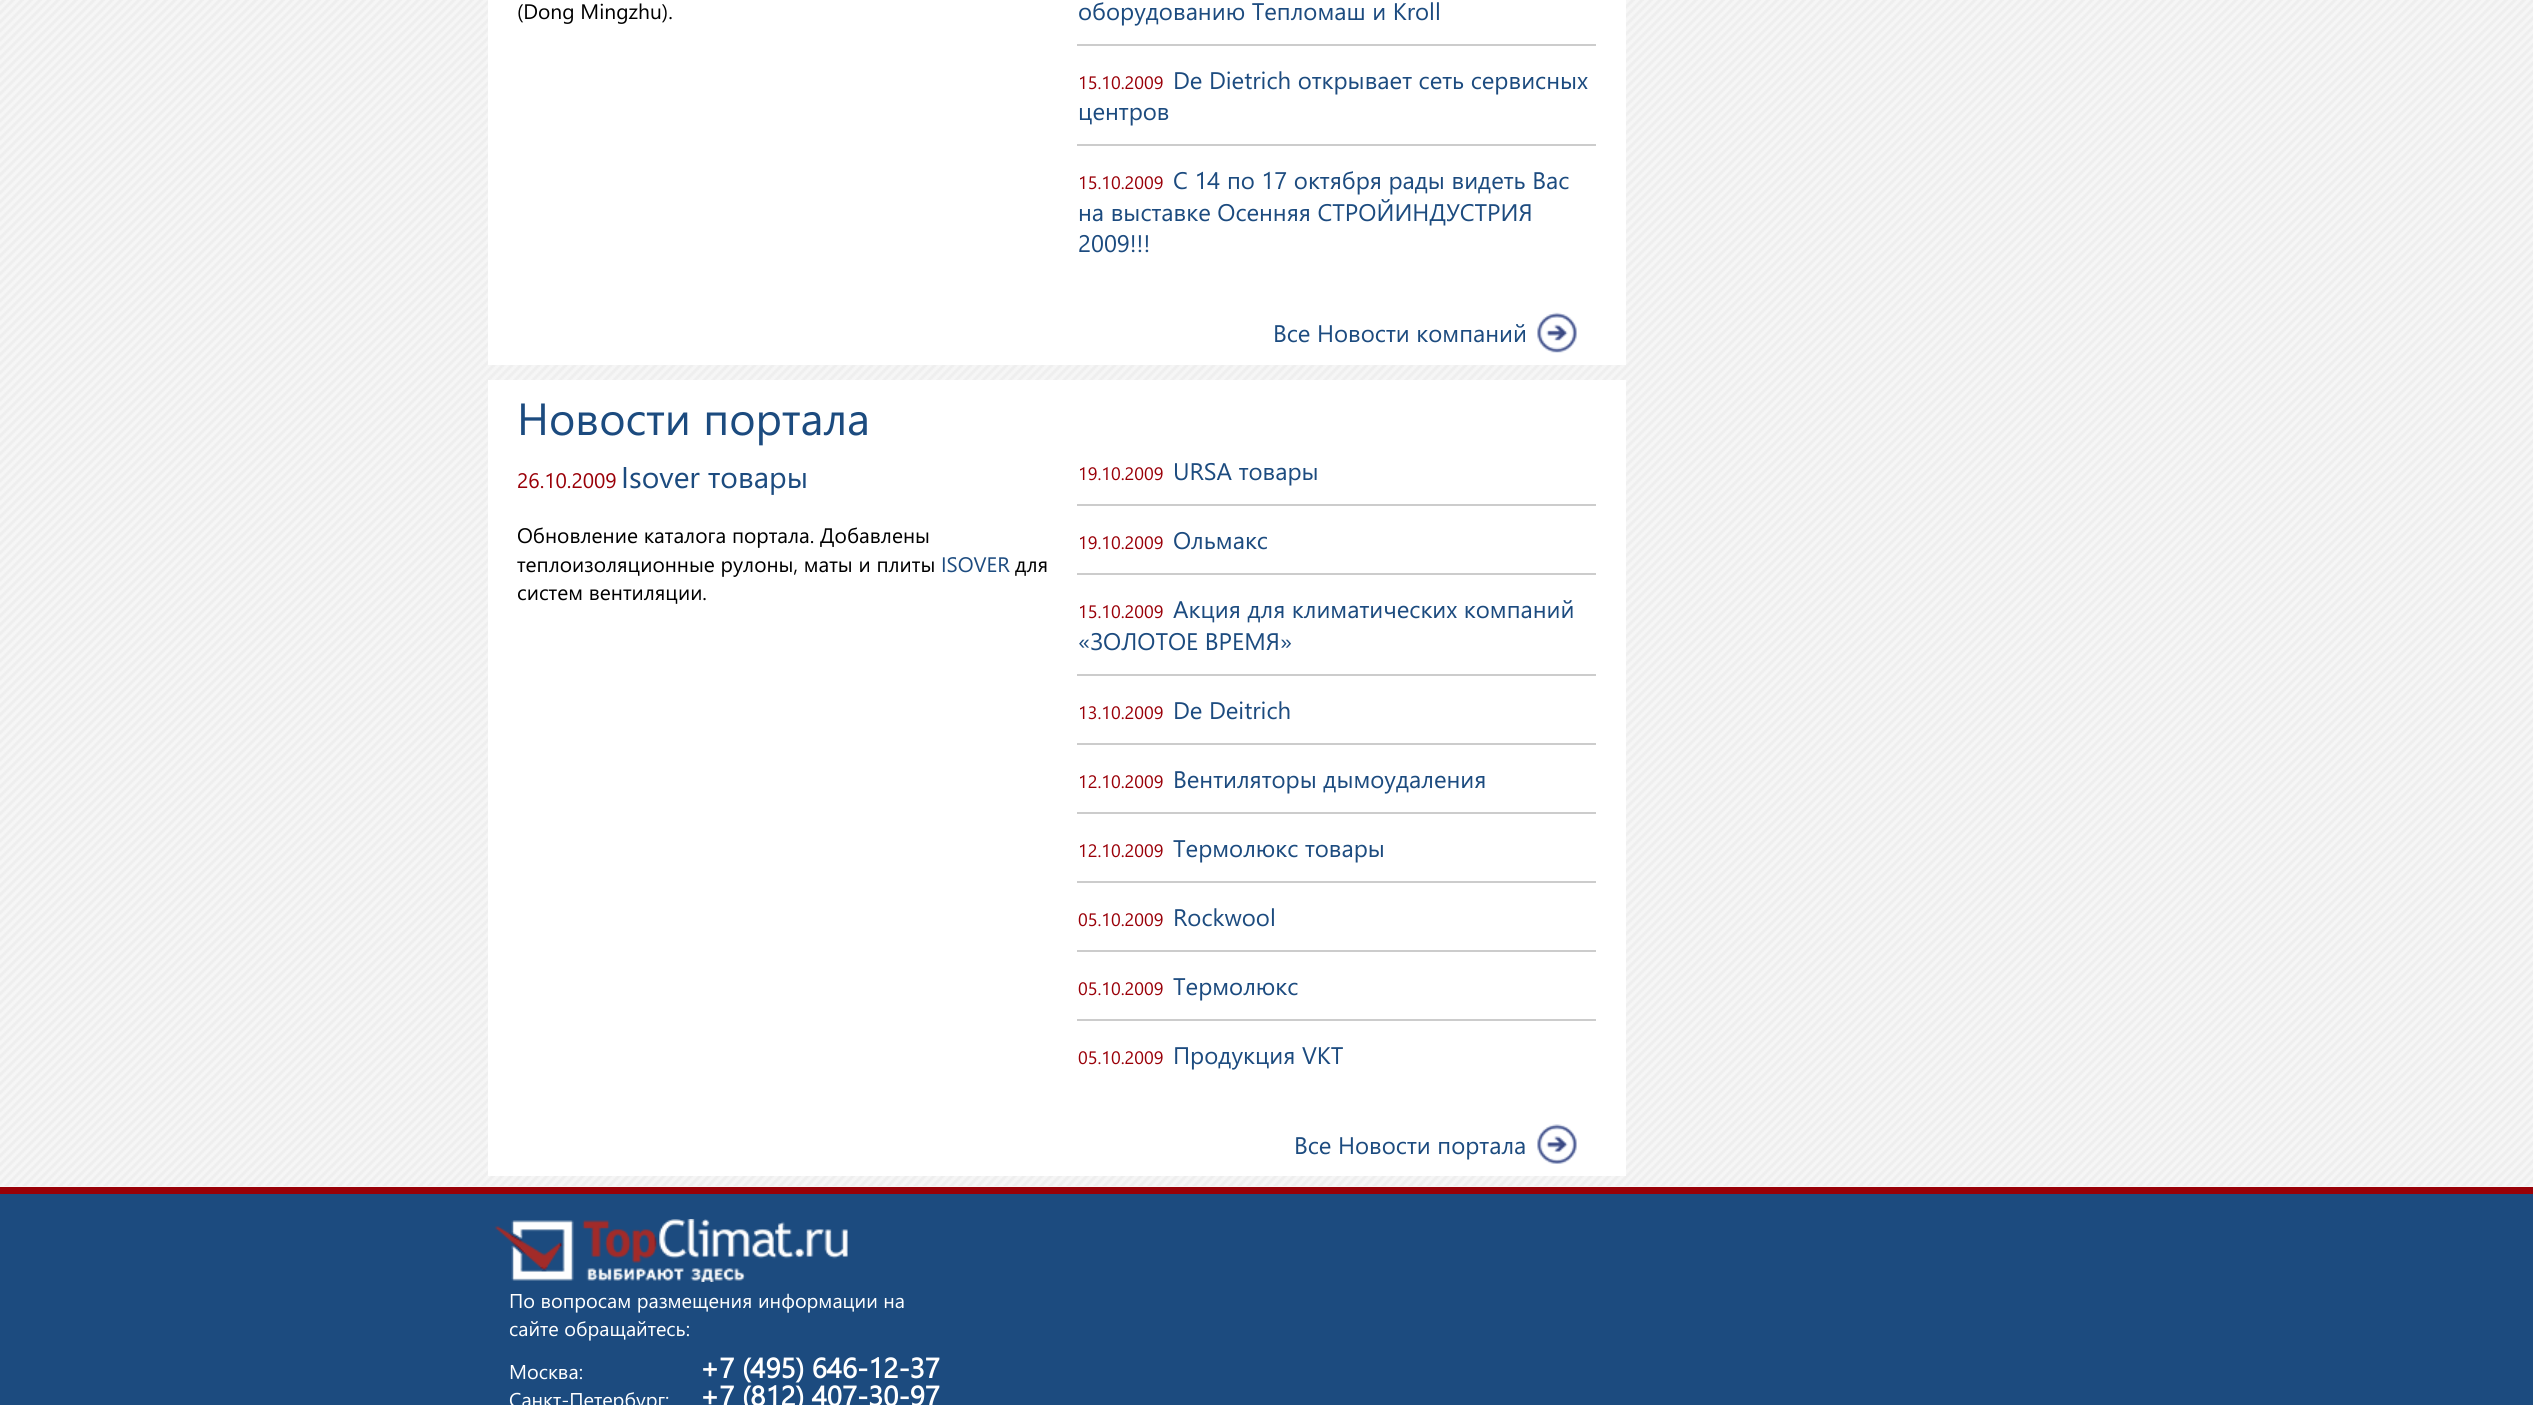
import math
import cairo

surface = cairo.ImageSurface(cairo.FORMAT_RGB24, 2533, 1405)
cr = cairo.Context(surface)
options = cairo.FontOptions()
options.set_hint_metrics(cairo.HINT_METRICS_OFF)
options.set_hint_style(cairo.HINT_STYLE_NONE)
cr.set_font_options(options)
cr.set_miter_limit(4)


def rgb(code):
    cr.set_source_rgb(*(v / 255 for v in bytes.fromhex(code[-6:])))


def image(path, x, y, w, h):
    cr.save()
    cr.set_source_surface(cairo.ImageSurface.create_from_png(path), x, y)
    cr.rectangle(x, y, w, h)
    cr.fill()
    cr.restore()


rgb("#1c4b7f")
cr.paint()
rgb("#f6f6f6")
cr.rectangle(0, 0, 2533, 1187)
cr.fill()
image("img/1.png", 0, 0, 2533, 1186)
for x, y, w, h, color in [
    (488, 0, 1138, 365, "#ffffff"),
    (1077, 44, 519, 2, "#cccccc"),
    (1077, 144, 519, 2, "#cccccc"),
]:
    rgb(color)
    cr.rectangle(x, y, w, h)
    cr.fill()
image("img/2.png", 1537, 312, 40, 41)
for x, y, w, h, color in [
    (488, 380, 1138, 796, "#ffffff"),
    (1077, 504, 519, 2, "#cccccc"),
    (1077, 573, 519, 2, "#cccccc"),
    (1077, 674, 519, 2, "#cccccc"),
    (1077, 743, 519, 2, "#cccccc"),
    (1077, 812, 519, 2, "#cccccc"),
    (1077, 881, 519, 2, "#cccccc"),
    (1077, 950, 519, 2, "#cccccc"),
    (1077, 1019, 519, 2, "#cccccc"),
]:
    rgb(color)
    cr.rectangle(x, y, w, h)
    cr.fill()
image("img/3.png", 1537, 1124, 40, 40)
rgb("#990007")
cr.rectangle(0, 1187, 2533, 7)
cr.fill()
image("img/4.png", 495, 1219, 353, 63)
cr.select_font_face("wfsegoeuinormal")
cr.set_font_size(21)
rgb("#000000")
cr.move_to(517, 19)
cr.show_text("(Dong Mingzhu).")
cr.set_font_size(24)
rgb("#1c4b7f")
cr.move_to(1078, 20)
cr.show_text("оборудованию Тепломаш и Kroll")
cr.set_font_size(18)
rgb("#9a0008")
cr.move_to(1078, 89)
cr.show_text("15.10.2009")
cr.set_font_size(24)
rgb("#1c4b7f")
cr.move_to(1173, 89)
cr.show_text("De Dietrich открывает сеть сервисных")
cr.move_to(1078, 120)
cr.show_text("центров")
cr.set_font_size(18)
rgb("#9a0008")
cr.move_to(1078, 189)
cr.show_text("15.10.2009")
cr.set_font_size(24)
rgb("#1c4b7f")
for x, y, s in [
    (1173, 189, "С 14 по 17 октября рады видеть Вас"),
    (1078, 221, "на выставке Осенняя СТРОЙИНДУСТРИЯ"),
    (1078, 252, "2009!!!"),
    (1273, 342, "Все Новости компаний"),
]:
    cr.move_to(x, y)
    cr.show_text(s)
cr.set_font_size(45)
cr.move_to(517, 435)
cr.show_text("Новости портала")
cr.set_font_size(21)
rgb("#9a0008")
cr.move_to(517, 488)
cr.show_text("26.10.2009")
cr.set_font_size(30)
rgb("#1c4b7f")
cr.move_to(621, 488)
cr.show_text("Isover товары")
cr.save()
cr.rectangle(518, 513, 538, 116)
cr.clip()
cr.set_font_size(21)
rgb("#000000")
cr.move_to(517, 543)
cr.show_text("Обновление каталога портала. Добавлены")
cr.restore()
cr.set_font_size(21)
rgb("#000000")
cr.move_to(517, 572)
cr.show_text("теплоизоляционные рулоны, маты и плиты")
rgb("#1c4b7f")
cr.move_to(941, 572)
cr.show_text("ISOVER")
rgb("#000000")
cr.move_to(1015, 572)
cr.show_text("для")
cr.save()
cr.rectangle(518, 513, 538, 116)
cr.clip()
cr.move_to(517, 600)
cr.show_text("систем вентиляции.")
cr.restore()
cr.set_font_size(18)
rgb("#9a0008")
cr.move_to(1078, 480)
cr.show_text("19.10.2009")
cr.set_font_size(24)
rgb("#1c4b7f")
cr.move_to(1173, 480)
cr.show_text("URSA товары")
cr.set_font_size(18)
rgb("#9a0008")
cr.move_to(1078, 549)
cr.show_text("19.10.2009")
cr.set_font_size(24)
rgb("#1c4b7f")
cr.move_to(1173, 549)
cr.show_text("Ольмакс")
cr.set_font_size(18)
rgb("#9a0008")
cr.move_to(1078, 618)
cr.show_text("15.10.2009")
cr.set_font_size(24)
rgb("#1c4b7f")
cr.move_to(1173, 618)
cr.show_text("Акция для климатических компаний")
cr.move_to(1078, 650)
cr.show_text("«ЗОЛОТОЕ ВРЕМЯ»")
cr.set_font_size(18)
rgb("#9a0008")
cr.move_to(1078, 719)
cr.show_text("13.10.2009")
cr.set_font_size(24)
rgb("#1c4b7f")
cr.move_to(1173, 719)
cr.show_text("De Deitrich")
cr.set_font_size(18)
rgb("#9a0008")
cr.move_to(1078, 788)
cr.show_text("12.10.2009")
cr.set_font_size(24)
rgb("#1c4b7f")
cr.move_to(1173, 788)
cr.show_text("Вентиляторы дымоудаления")
cr.set_font_size(18)
rgb("#9a0008")
cr.move_to(1078, 857)
cr.show_text("12.10.2009")
cr.set_font_size(24)
rgb("#1c4b7f")
cr.move_to(1173, 857)
cr.show_text("Термолюкс товары")
cr.set_font_size(18)
rgb("#9a0008")
cr.move_to(1078, 926)
cr.show_text("05.10.2009")
cr.set_font_size(24)
rgb("#1c4b7f")
cr.move_to(1173, 926)
cr.show_text("Rockwool")
cr.set_font_size(18)
rgb("#9a0008")
cr.move_to(1078, 995)
cr.show_text("05.10.2009")
cr.set_font_size(24)
rgb("#1c4b7f")
cr.move_to(1173, 995)
cr.show_text("Термолюкс")
cr.set_font_size(18)
rgb("#9a0008")
cr.move_to(1078, 1064)
cr.show_text("05.10.2009")
cr.set_font_size(24)
rgb("#1c4b7f")
cr.move_to(1173, 1064)
cr.show_text("Продукция VKT")
cr.move_to(1294, 1154)
cr.show_text("Все Новости портала")
cr.set_font_size(20)
rgb("#ffffff")
for x, y, s in [
    (509, 1308, "По вопросам размещения"),
    (758, 1308, "информации на"),
    (509, 1336, "сайте обращайтесь:"),
    (509, 1379, "Москва:"),
]:
    cr.move_to(x, y)
    cr.show_text(s)
cr.select_font_face("wfsegoeuinormal", cairo.FONT_SLANT_NORMAL, cairo.FONT_WEIGHT_BOLD)
cr.set_font_size(28)
cr.move_to(700, 1378)
cr.show_text("+7 (495) 646-12-37")
cr.select_font_face("wfsegoeuinormal")
cr.set_font_size(20)
cr.move_to(509, 1407)
cr.show_text("Санкт-Петербург:")
cr.select_font_face("wfsegoeuinormal", cairo.FONT_SLANT_NORMAL, cairo.FONT_WEIGHT_BOLD)
cr.set_font_size(28)
cr.move_to(700, 1406)
cr.show_text("+7 (812) 407-30-97")
surface.write_to_png("page.png")
